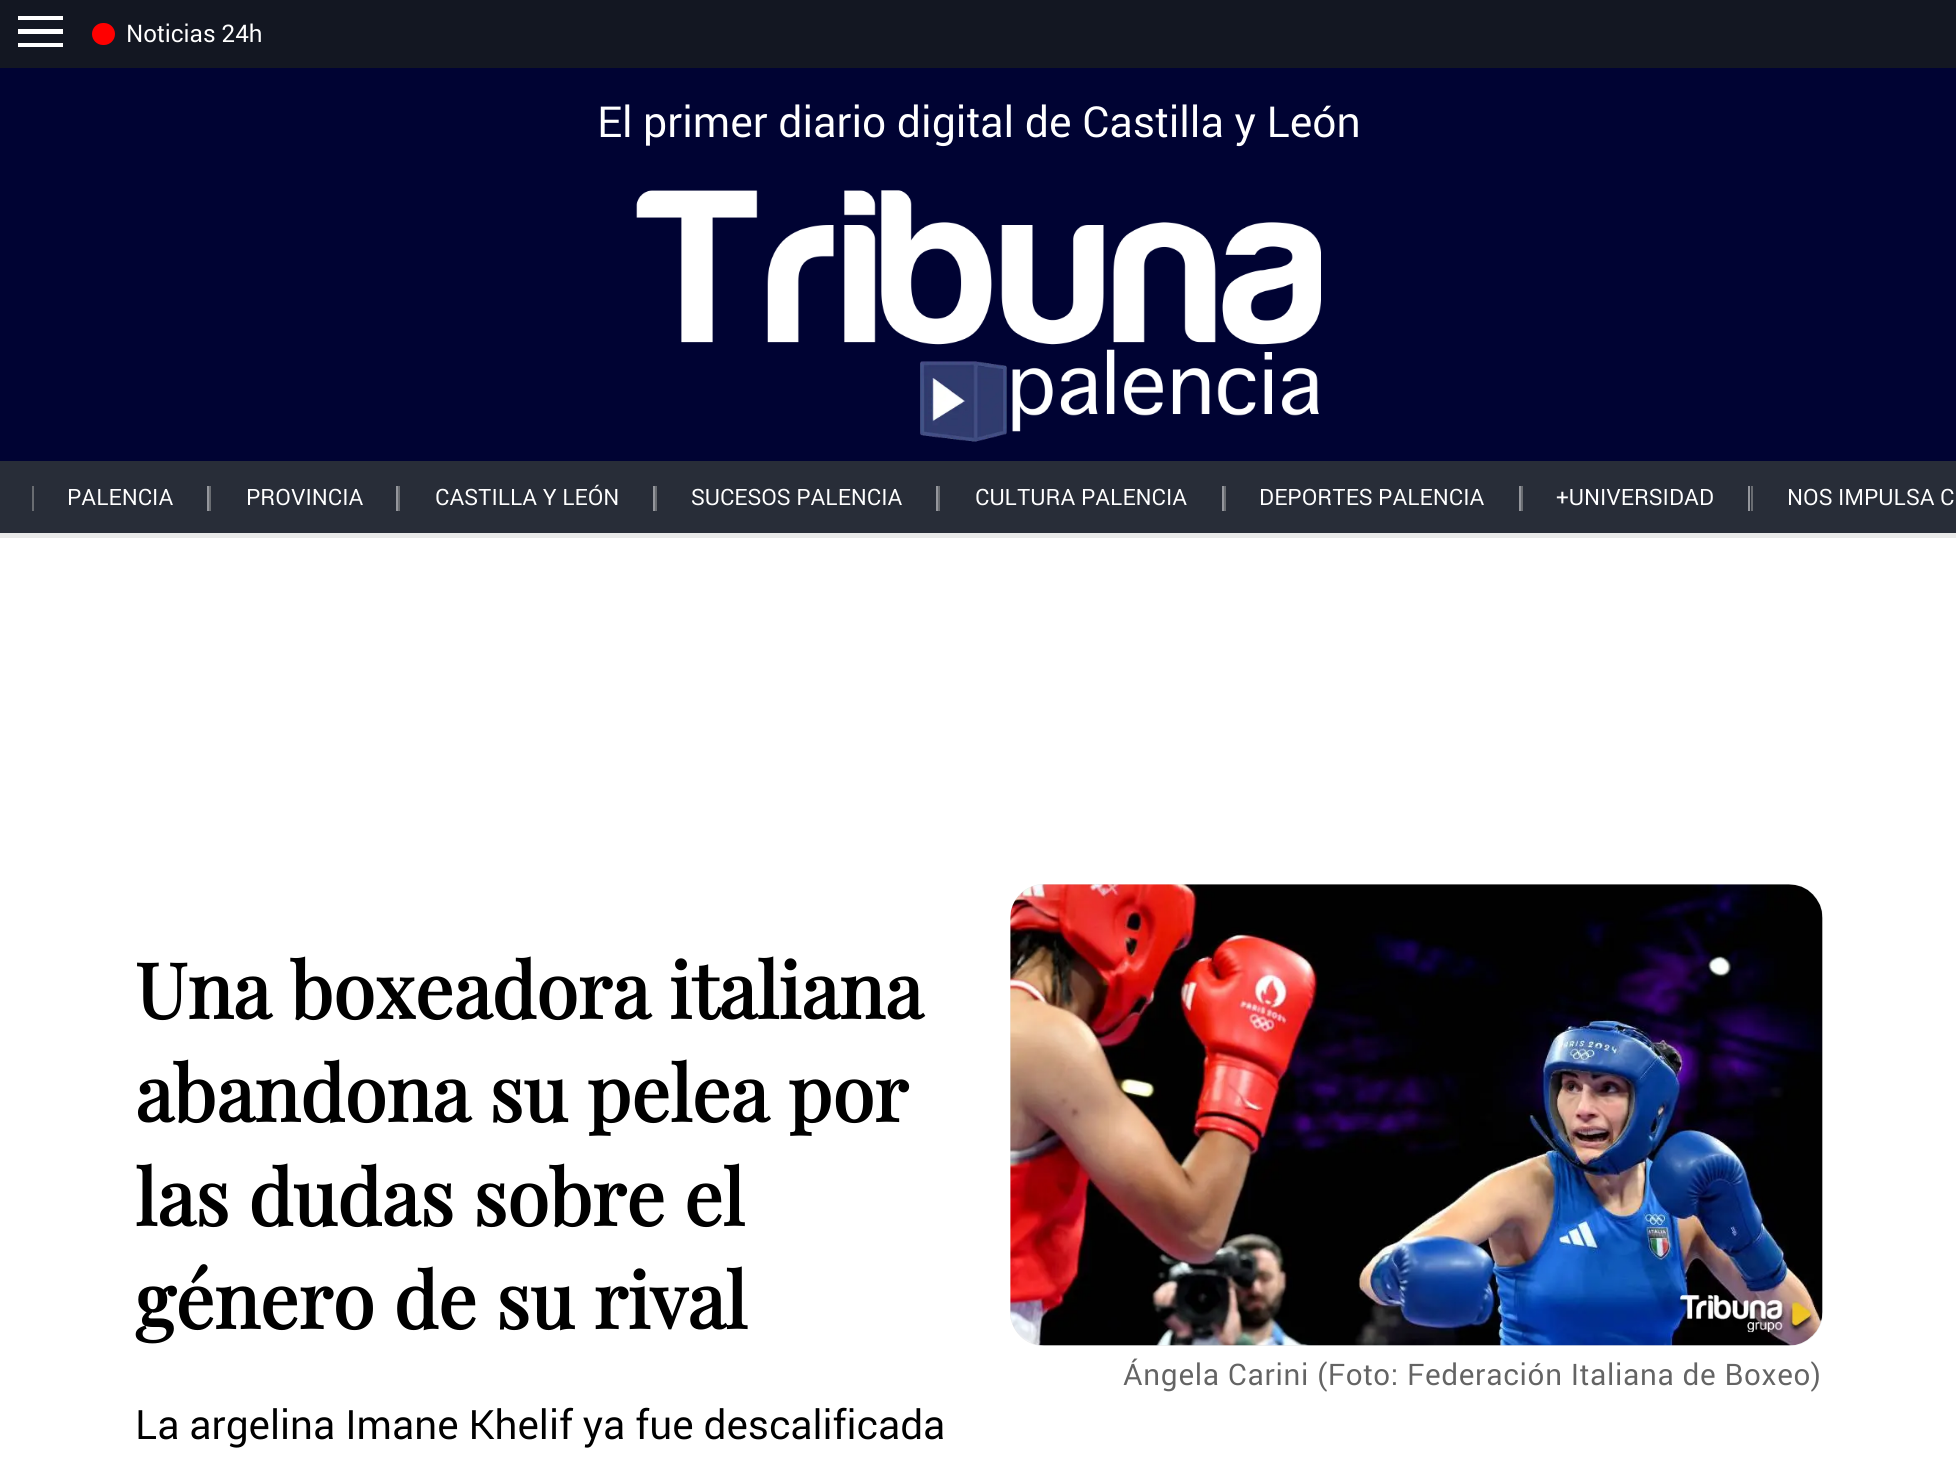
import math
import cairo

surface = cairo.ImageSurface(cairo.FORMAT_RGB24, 1956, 1472)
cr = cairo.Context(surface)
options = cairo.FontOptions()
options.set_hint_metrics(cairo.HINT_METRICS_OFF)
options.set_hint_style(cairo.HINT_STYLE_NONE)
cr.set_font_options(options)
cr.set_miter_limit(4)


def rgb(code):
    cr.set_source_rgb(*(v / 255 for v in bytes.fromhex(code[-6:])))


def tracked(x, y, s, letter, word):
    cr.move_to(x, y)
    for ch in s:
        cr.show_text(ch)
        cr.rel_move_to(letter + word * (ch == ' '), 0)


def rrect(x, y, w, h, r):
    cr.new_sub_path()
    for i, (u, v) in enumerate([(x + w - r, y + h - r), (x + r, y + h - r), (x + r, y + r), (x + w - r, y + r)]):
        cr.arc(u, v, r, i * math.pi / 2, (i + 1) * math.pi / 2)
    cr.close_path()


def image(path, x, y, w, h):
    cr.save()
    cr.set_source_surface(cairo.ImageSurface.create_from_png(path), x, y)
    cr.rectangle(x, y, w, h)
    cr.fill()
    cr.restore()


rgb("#ffffff")
cr.paint()
rgb("#131722")
cr.rectangle(0, 0, 1956, 68)
cr.fill()
rgb("#ffffff")
cr.set_fill_rule(cairo.FILL_RULE_EVEN_ODD)
cr.new_path()
cr.move_to(18, 29)
cr.line_to(63, 29)
cr.line_to(63, 34)
cr.line_to(18, 34)
cr.close_path()
cr.move_to(18, 16)
cr.line_to(63, 16)
cr.line_to(63, 20)
cr.line_to(18, 20)
cr.close_path()
cr.move_to(18, 43)
cr.line_to(63, 43)
cr.line_to(63, 47)
cr.line_to(18, 47)
cr.close_path()
cr.fill()
rgb("#ff0000")
rrect(92, 23, 23, 22, 11)
cr.fill()
rgb("#000333")
cr.rectangle(0, 68, 1956, 393)
cr.fill()
image("img/1.png", 636, 190, 685, 252)
for x, y, w, h, color in [
    (0, 461, 1956, 72, "#282d38"),
    (0, 533, 1956, 5, "#e9e9e9"),
    (207, 486, 2, 25, "#94969c"),
    (32, 486, 2, 25, "#696c71"),
    (396, 486, 2, 25, "#94969c"),
    (209, 486, 2, 25, "#696c71"),
    (653, 486, 2, 25, "#94969c"),
    (398, 486, 2, 25, "#696c71"),
    (936, 486, 2, 25, "#94969c"),
    (655, 486, 2, 25, "#696c71"),
    (1222, 486, 2, 25, "#94969c"),
    (938, 486, 2, 25, "#696c71"),
    (1519, 486, 2, 25, "#94969c"),
    (1224, 486, 2, 25, "#696c71"),
    (1748, 486, 2, 25, "#94969c"),
    (1521, 486, 2, 25, "#696c71"),
    (1751, 486, 2, 25, "#696c71"),
]:
    rgb(color)
    cr.rectangle(x, y, w, h)
    cr.fill()
rgb("#eaeaea")
rrect(1010, 884, 813, 462, 34)
cr.fill()
image("img/2.png", 1010, 884, 813, 462)
cr.select_font_face("Roboto")
cr.set_font_size(24.25)
rgb("#ffffff")
cr.move_to(126, 42)
cr.show_text("Noticias 24h")
cr.set_font_size(42.75)
cr.move_to(597, 137)
cr.show_text("El primer diario digital de Castilla y León")
cr.set_font_size(22.5)
for x, y, s in [
    (67, 505, "PALENCIA"),
    (246, 505, "PROVINCIA"),
    (435, 505, "CASTILLA Y LEÓN"),
    (691, 505, "SUCESOS PALENCIA"),
    (975, 505, "CULTURA PALENCIA"),
    (1259, 505, "DEPORTES PALENCIA"),
    (1556, 505, "+UNIVERSIDAD"),
    (1787, 505, "NOS IMPULSA C"),
]:
    cr.move_to(x, y)
    cr.show_text(s)
cr.select_font_face("Playfair Display", cairo.FONT_SLANT_NORMAL, cairo.FONT_WEIGHT_BOLD)
cr.set_font_size(76.5)
rgb("#000000")
for x, y, s in [
    (135, 1019, "Una boxeadora italiana"),
    (135, 1122, "abandona su pelea por"),
    (135, 1226, "las dudas sobre el"),
    (135, 1329, "género de su rival"),
]:
    cr.move_to(x, y)
    cr.show_text(s)
cr.select_font_face("Roboto")
cr.set_font_size(40.5)
cr.move_to(135, 1439)
cr.show_text("La argelina Imane Khelif ya fue descalificada")
cr.set_font_size(29.7)
rgb("#646464")
tracked(1123, 1385, "Ángela Carini (Foto: Federación Italiana de Boxeo)", 0.7, 0)
surface.write_to_png("page.png")
